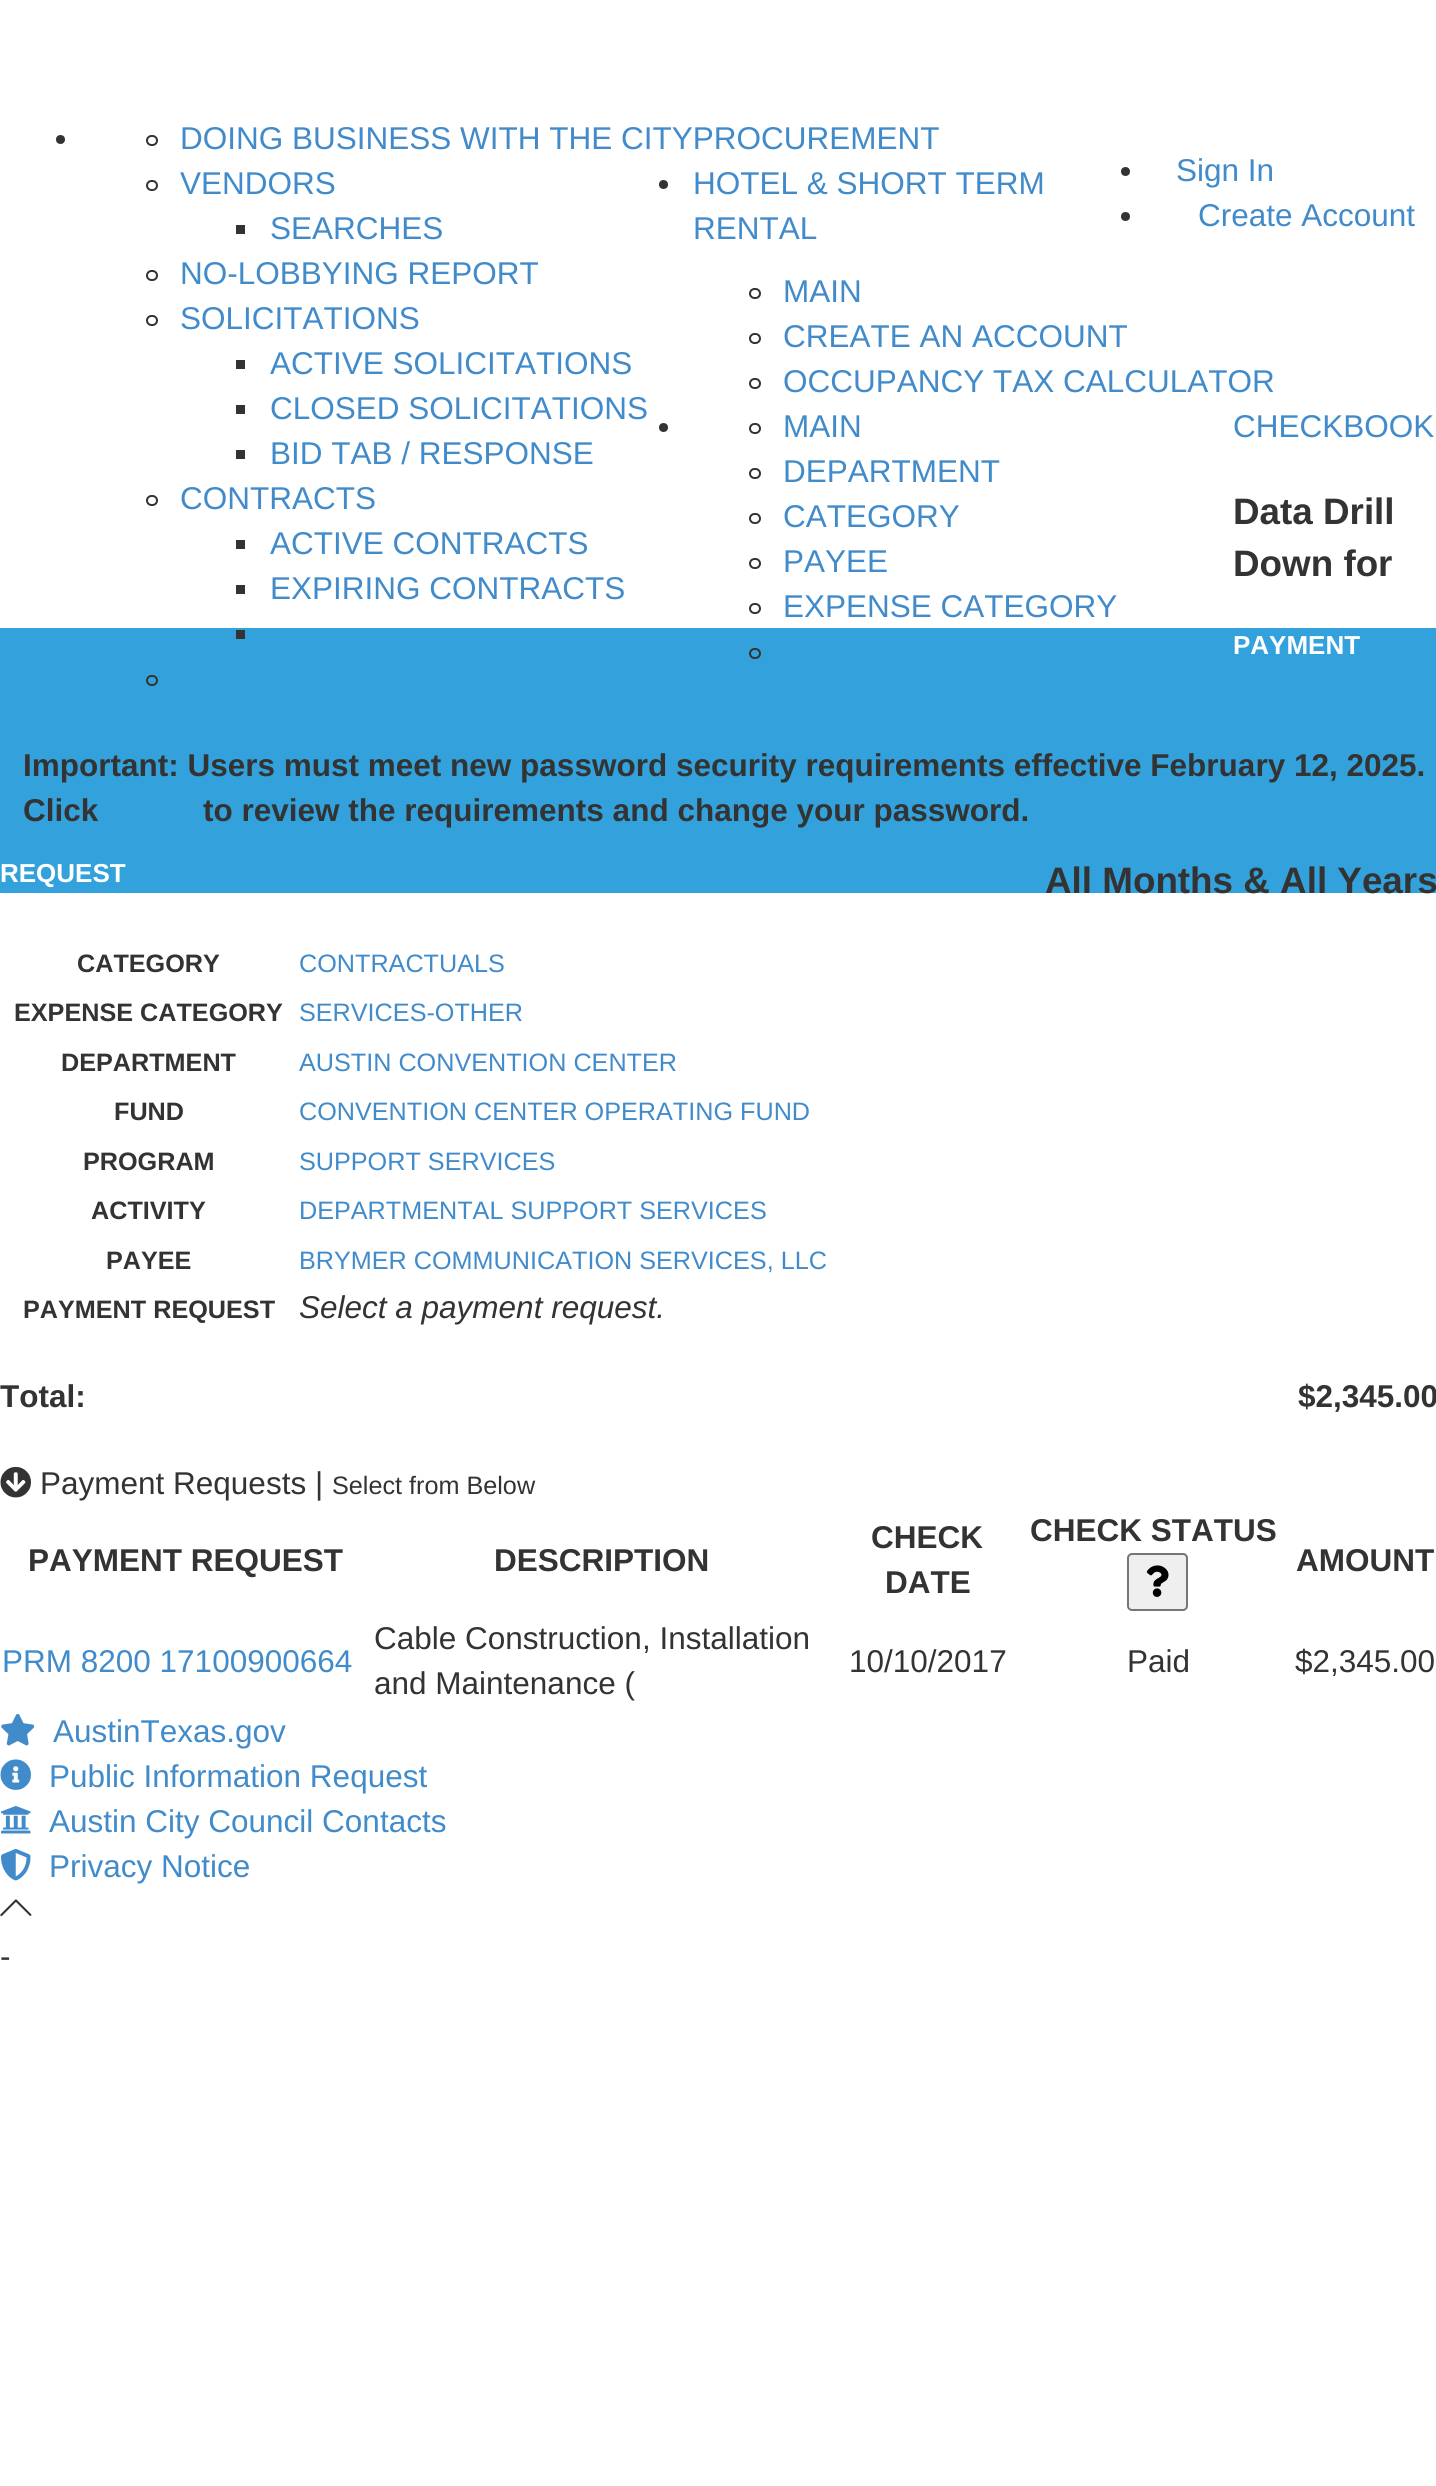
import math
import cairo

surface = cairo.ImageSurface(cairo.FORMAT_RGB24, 1436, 2486)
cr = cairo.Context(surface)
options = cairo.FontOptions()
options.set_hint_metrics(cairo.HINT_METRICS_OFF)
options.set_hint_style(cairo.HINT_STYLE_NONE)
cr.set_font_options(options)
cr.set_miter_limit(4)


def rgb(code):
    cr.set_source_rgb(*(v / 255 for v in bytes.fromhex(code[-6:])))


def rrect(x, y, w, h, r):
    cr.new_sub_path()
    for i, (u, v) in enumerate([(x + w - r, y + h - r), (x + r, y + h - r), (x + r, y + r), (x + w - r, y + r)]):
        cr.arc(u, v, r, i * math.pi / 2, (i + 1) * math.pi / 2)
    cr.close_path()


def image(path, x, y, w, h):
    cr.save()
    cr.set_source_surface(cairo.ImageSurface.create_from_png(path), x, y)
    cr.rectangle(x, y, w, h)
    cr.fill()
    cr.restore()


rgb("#ffffff")
cr.paint()
rgb("#333333")
cr.arc(60.5, 139.5, 4.5, 0, 2 * math.pi)
cr.fill()
rrect(147, 136, 10, 9, 4.5)
cr.stroke()
rrect(147, 181, 10, 9, 4.5)
cr.stroke()
cr.rectangle(236, 225, 9, 9)
cr.fill()
rrect(147, 271, 10, 9, 4.5)
cr.stroke()
rrect(147, 316, 10, 9, 4.5)
cr.stroke()
for x, y, w, h, color in [
    (236, 360, 9, 9, "#333333"),
    (236, 405, 9, 9, "#333333"),
    (236, 450, 9, 9, "#333333"),
]:
    rgb(color)
    cr.rectangle(x, y, w, h)
    cr.fill()
rrect(147, 496, 10, 9, 4.5)
cr.stroke()
for x, y, w, h, color in [
    (236, 540, 9, 9, "#333333"),
    (236, 585, 9, 9, "#333333"),
    (0, 628, 1436, 265, "#33a2dc"),
    (236, 630, 9, 9, "#333333"),
]:
    rgb(color)
    cr.rectangle(x, y, w, h)
    cr.fill()
rrect(147, 676, 10, 9, 4.5)
cr.stroke()
cr.arc(663.5, 184.5, 4.5, 0, 2 * math.pi)
cr.fill()
rrect(750, 289, 10, 9, 4.5)
cr.stroke()
rrect(750, 334, 10, 9, 4.5)
cr.stroke()
rrect(750, 379, 10, 9, 4.5)
cr.stroke()
cr.arc(663.5, 427.5, 4.5, 0, 2 * math.pi)
cr.fill()
rrect(750, 424, 10, 9, 4.5)
cr.stroke()
rrect(750, 469, 10, 9, 4.5)
cr.stroke()
rrect(750, 514, 10, 9, 4.5)
cr.stroke()
rrect(750, 559, 10, 9, 4.5)
cr.stroke()
rrect(750, 604, 10, 9, 4.5)
cr.stroke()
rrect(750, 649, 10, 9, 4.5)
cr.stroke()
cr.arc(1125.5, 171.5, 4.5, 0, 2 * math.pi)
cr.fill()
cr.arc(1125.5, 216.5, 4.5, 0, 2 * math.pi)
cr.fill()
image("img/1.png", 0, 1466, 31, 32)
rgb("#efefef")
rrect(1128, 1554, 59, 56, 4)
cr.fill_preserve()
rgb("#767676")
cr.stroke()
image("img/2.png", 1146, 1565, 23, 32)
image("img/3.png", 1, 1713, 34, 33)
image("img/4.png", 0, 1759, 31, 31)
image("img/5.png", 1, 1805, 30, 29)
image("img/6.png", 1, 1849, 30, 32)
image("img/7.png", 0, 1899, 32, 18)
cr.select_font_face("Liberation Sans")
cr.set_font_size(31.5)
rgb("#428bca")
for x, y, s in [
    (180, 149, "DOING BUSINESS WITH THE CITYPROCUREMENT"),
    (180, 194, "VENDORS"),
    (270, 239, "SEARCHES"),
    (180, 284, "NO-LOBBYING REPORT"),
    (180, 329, "SOLICITATIONS"),
    (270, 374, "ACTIVE SOLICITATIONS"),
    (270, 419, "CLOSED SOLICITATIONS"),
    (270, 464, "BID TAB / RESPONSE"),
    (180, 509, "CONTRACTS"),
    (270, 554, "ACTIVE CONTRACTS"),
    (270, 599, "EXPIRING CONTRACTS"),
    (693, 194, "HOTEL & SHORT TERM"),
    (693, 239, "RENTAL"),
    (783, 302, "MAIN"),
    (783, 347, "CREATE AN ACCOUNT"),
    (783, 392, "OCCUPANCY TAX CALCULATOR"),
    (783, 437, "MAIN"),
    (783, 482, "DEPARTMENT"),
    (783, 527, "CATEGORY"),
    (783, 572, "PAYEE"),
    (783, 617, "EXPENSE CATEGORY"),
    (1233, 437, "CHECKBOOK"),
    (1176, 181, "Sign In"),
    (1198, 226, "Create Account"),
]:
    cr.move_to(x, y)
    cr.show_text(s)
cr.select_font_face("Liberation Sans", cairo.FONT_SLANT_NORMAL, cairo.FONT_WEIGHT_BOLD)
cr.set_font_size(36.8)
rgb("#333333")
for x, y, s in [
    (1233, 524, "Data Drill"),
    (1233, 576, "Down for"),
    (1045, 893, "All Months & All Years"),
]:
    cr.move_to(x, y)
    cr.show_text(s)
cr.set_font_size(26)
rgb("#ffffff")
cr.move_to(1233, 654)
cr.show_text("PAYMENT")
cr.move_to(0, 882)
cr.show_text("REQUEST")
cr.set_font_size(25.2)
rgb("#333333")
cr.move_to(77, 972)
cr.show_text("CATEGORY")
cr.select_font_face("Liberation Sans")
rgb("#428bca")
cr.move_to(299, 972)
cr.show_text("CONTRACTUALS")
cr.select_font_face("Liberation Sans", cairo.FONT_SLANT_NORMAL, cairo.FONT_WEIGHT_BOLD)
rgb("#333333")
cr.move_to(14, 1021)
cr.show_text("EXPENSE CATEGORY")
cr.select_font_face("Liberation Sans")
rgb("#428bca")
cr.move_to(299, 1021)
cr.show_text("SERVICES-OTHER")
cr.select_font_face("Liberation Sans", cairo.FONT_SLANT_NORMAL, cairo.FONT_WEIGHT_BOLD)
rgb("#333333")
cr.move_to(61, 1071)
cr.show_text("DEPARTMENT")
cr.select_font_face("Liberation Sans")
rgb("#428bca")
cr.move_to(299, 1071)
cr.show_text("AUSTIN CONVENTION CENTER")
cr.select_font_face("Liberation Sans", cairo.FONT_SLANT_NORMAL, cairo.FONT_WEIGHT_BOLD)
rgb("#333333")
cr.move_to(114, 1120)
cr.show_text("FUND")
cr.select_font_face("Liberation Sans")
rgb("#428bca")
cr.move_to(299, 1120)
cr.show_text("CONVENTION CENTER OPERATING FUND")
cr.select_font_face("Liberation Sans", cairo.FONT_SLANT_NORMAL, cairo.FONT_WEIGHT_BOLD)
rgb("#333333")
cr.move_to(83, 1170)
cr.show_text("PROGRAM")
cr.select_font_face("Liberation Sans")
rgb("#428bca")
cr.move_to(299, 1170)
cr.show_text("SUPPORT SERVICES")
cr.select_font_face("Liberation Sans", cairo.FONT_SLANT_NORMAL, cairo.FONT_WEIGHT_BOLD)
rgb("#333333")
cr.move_to(91, 1219)
cr.show_text("ACTIVITY")
cr.select_font_face("Liberation Sans")
rgb("#428bca")
cr.move_to(299, 1219)
cr.show_text("DEPARTMENTAL SUPPORT SERVICES")
cr.select_font_face("Liberation Sans", cairo.FONT_SLANT_NORMAL, cairo.FONT_WEIGHT_BOLD)
rgb("#333333")
cr.move_to(106, 1269)
cr.show_text("PAYEE")
cr.select_font_face("Liberation Sans")
rgb("#428bca")
cr.move_to(299, 1269)
cr.show_text("BRYMER COMMUNICATION SERVICES, LLC")
cr.select_font_face("Liberation Sans", cairo.FONT_SLANT_NORMAL, cairo.FONT_WEIGHT_BOLD)
rgb("#333333")
cr.move_to(23, 1318)
cr.show_text("PAYMENT REQUEST")
cr.select_font_face("Liberation Sans", cairo.FONT_SLANT_ITALIC)
cr.set_font_size(31.5)
cr.move_to(299, 1318)
cr.show_text("Select a payment request.")
cr.select_font_face("Liberation Sans", cairo.FONT_SLANT_NORMAL, cairo.FONT_WEIGHT_BOLD)
cr.move_to(0, 1407)
cr.show_text("Total:")
cr.move_to(1298, 1407)
cr.show_text("$2,345.00")
cr.select_font_face("Liberation Sans")
cr.move_to(40, 1494)
cr.show_text("Payment Requests |")
cr.set_font_size(25.2)
cr.move_to(332, 1494)
cr.show_text("Select from Below")
cr.select_font_face("Liberation Sans", cairo.FONT_SLANT_NORMAL, cairo.FONT_WEIGHT_BOLD)
cr.set_font_size(31.5)
for x, y, s in [
    (28, 1571, "PAYMENT REQUEST"),
    (494, 1571, "DESCRIPTION"),
    (871, 1548, "CHECK"),
    (885, 1593, "DATE"),
    (1030, 1541, "CHECK STATUS"),
    (1296, 1571, "AMOUNT"),
]:
    cr.move_to(x, y)
    cr.show_text(s)
cr.select_font_face("Liberation Sans")
rgb("#428bca")
cr.move_to(2, 1672)
cr.show_text("PRM 8200 17100900664")
rgb("#333333")
for x, y, s in [
    (374, 1649, "Cable Construction, Installation"),
    (374, 1694, "and Maintenance ("),
    (849, 1672, "10/10/2017"),
    (1127, 1672, "Paid"),
    (1295, 1672, "$2,345.00"),
]:
    cr.move_to(x, y)
    cr.show_text(s)
cr.select_font_face("Liberation Sans", cairo.FONT_SLANT_NORMAL, cairo.FONT_WEIGHT_BOLD)
for x, y, s in [
    (23, 776, "Important: Users must meet new password security requirements effective February 12, 2025."),
    (23, 821, "Click"),
    (203, 821, "to review the requirements and change your password."),
]:
    cr.move_to(x, y)
    cr.show_text(s)
cr.select_font_face("Liberation Sans")
rgb("#428bca")
for x, y, s in [
    (53, 1742, "AustinTexas.gov"),
    (49, 1787, "Public Information Request"),
    (49, 1832, "Austin City Council Contacts"),
    (49, 1877, "Privacy Notice"),
]:
    cr.move_to(x, y)
    cr.show_text(s)
rgb("#333333")
cr.move_to(0, 1967)
cr.show_text("-")
surface.write_to_png("page.png")
